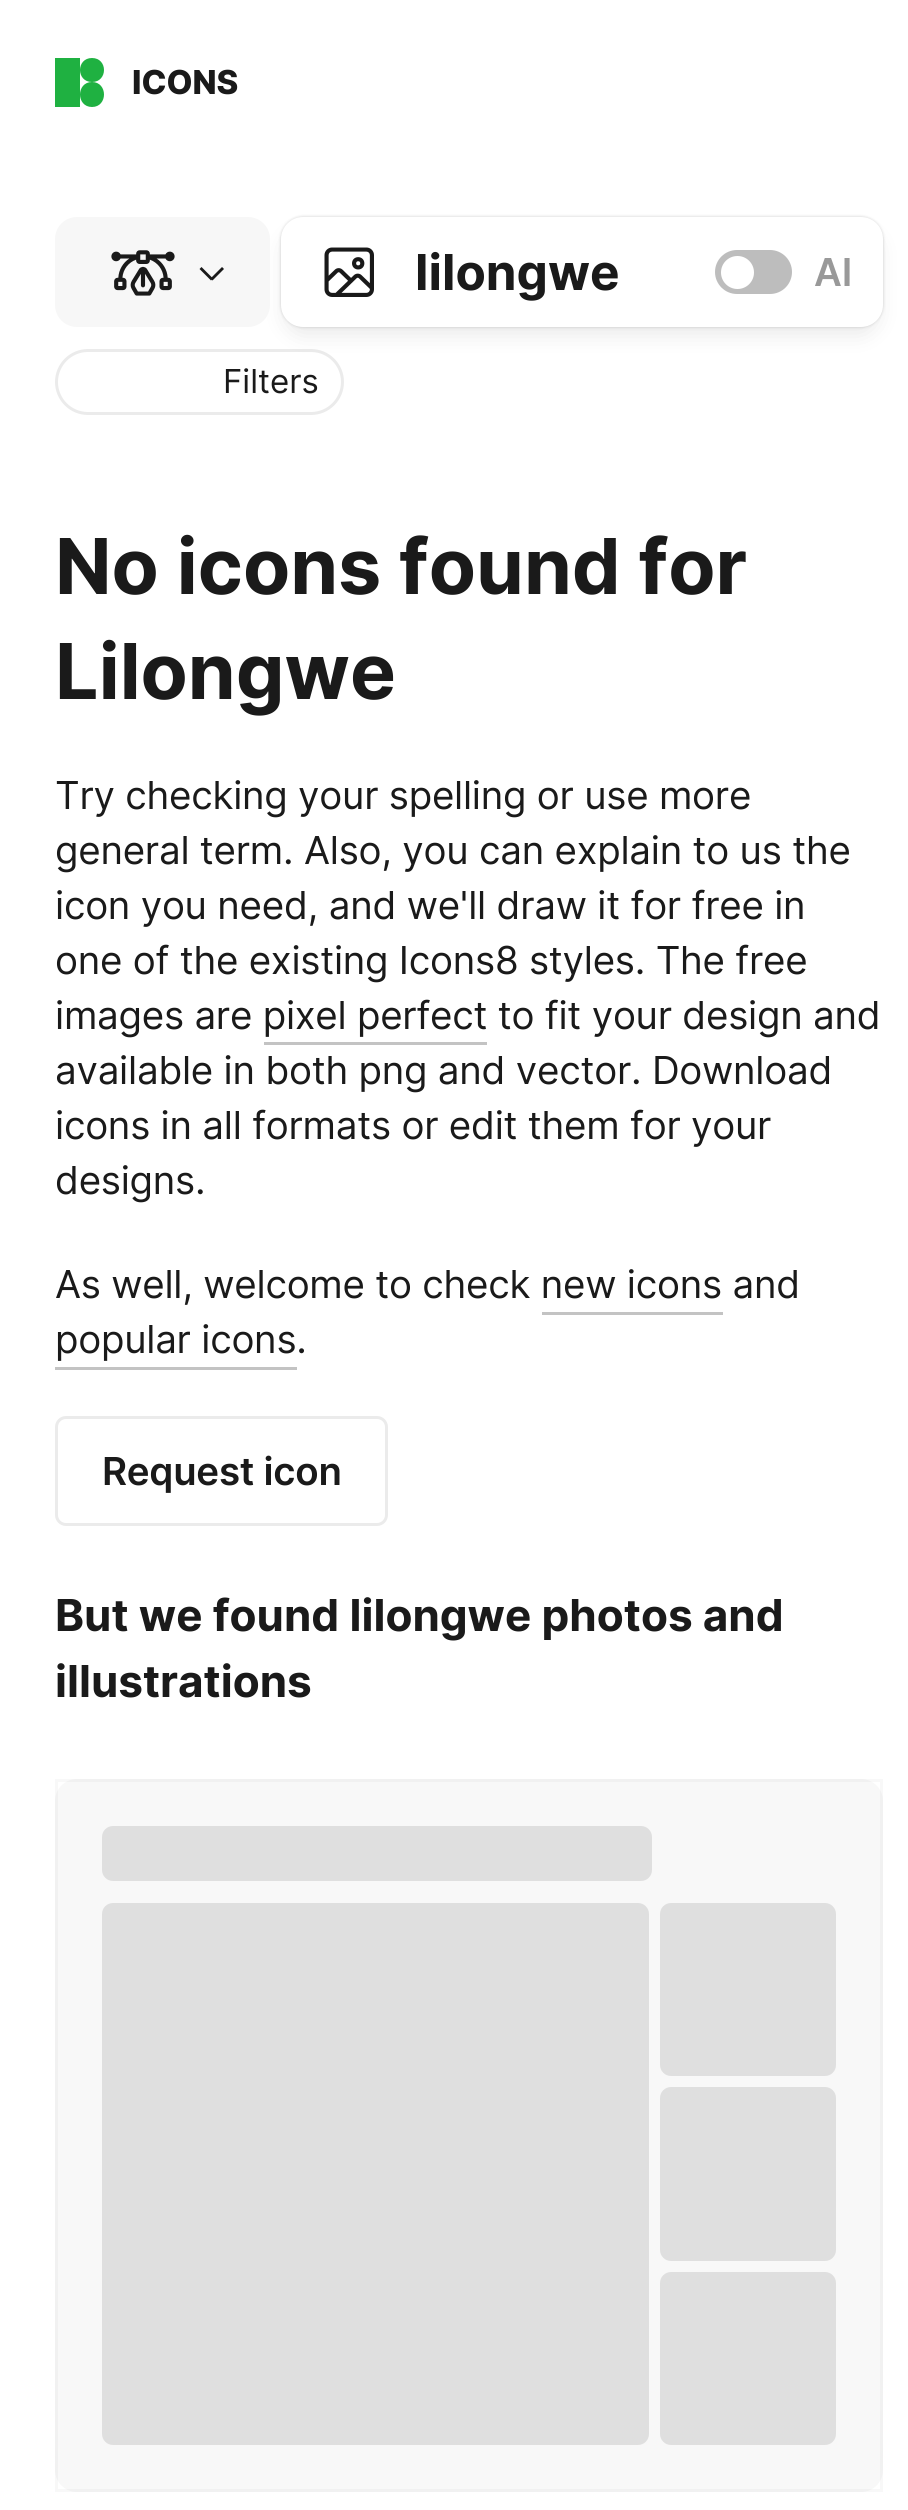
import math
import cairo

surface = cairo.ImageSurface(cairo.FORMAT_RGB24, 908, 2510)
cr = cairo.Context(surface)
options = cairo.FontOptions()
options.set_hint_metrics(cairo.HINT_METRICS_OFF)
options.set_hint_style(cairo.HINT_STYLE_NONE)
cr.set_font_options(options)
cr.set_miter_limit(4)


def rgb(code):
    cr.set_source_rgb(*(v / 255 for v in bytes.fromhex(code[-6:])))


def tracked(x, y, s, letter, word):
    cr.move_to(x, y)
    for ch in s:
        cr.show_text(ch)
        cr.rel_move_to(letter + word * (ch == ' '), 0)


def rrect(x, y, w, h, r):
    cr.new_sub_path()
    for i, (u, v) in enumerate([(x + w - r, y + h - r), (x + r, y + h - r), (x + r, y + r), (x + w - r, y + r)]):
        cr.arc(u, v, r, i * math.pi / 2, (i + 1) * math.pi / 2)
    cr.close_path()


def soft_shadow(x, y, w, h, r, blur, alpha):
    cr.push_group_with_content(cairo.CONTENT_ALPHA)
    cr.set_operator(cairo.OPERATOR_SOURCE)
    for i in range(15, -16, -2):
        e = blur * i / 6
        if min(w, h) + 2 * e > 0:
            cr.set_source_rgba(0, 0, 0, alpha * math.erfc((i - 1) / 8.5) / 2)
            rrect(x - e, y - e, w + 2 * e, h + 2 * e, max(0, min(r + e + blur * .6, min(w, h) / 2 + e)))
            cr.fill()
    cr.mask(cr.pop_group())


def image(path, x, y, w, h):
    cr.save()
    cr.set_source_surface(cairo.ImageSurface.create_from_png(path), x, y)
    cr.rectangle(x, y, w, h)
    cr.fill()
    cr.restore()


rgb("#ffffff")
cr.paint()
rgb("#1fb141")
cr.rectangle(55, 58, 25, 49)
cr.fill()
cr.new_path()
cr.move_to(92, 82)
cr.curve_to(108, 82, 108, 58, 92, 58)
cr.curve_to(76, 58, 76, 82, 92, 82)
cr.close_path()
cr.move_to(92, 107)
cr.curve_to(108, 107, 108, 82, 92, 82)
cr.curve_to(76, 82, 76, 107, 92, 107)
cr.close_path()
cr.fill()
rrect(56.5, 350.5, 286, 63, 31.5)
rgb("#ebebeb")
cr.set_line_width(3)
cr.stroke()
rgb("#606060")
soft_shadow(286, 234, 591, 99, 17, 11, 0.15)
rgb("#f7f7f7")
rrect(55, 217, 215, 110, 22)
cr.fill()
image("img/1.png", 111, 250, 64, 46)
rgb("#1a1a1a")
cr.new_path()
cr.move_to(201.5, 267)
cr.line_to(213, 278.5)
cr.line_to(211, 280.5)
cr.line_to(199.5, 269)
cr.close_path()
cr.fill()
cr.new_path()
cr.move_to(210.5, 278.5)
cr.line_to(222, 267)
cr.line_to(224, 269)
cr.line_to(212.5, 280.5)
cr.close_path()
cr.fill()
rgb("#606060")
soft_shadow(281, 217, 602, 110, 22, 1.5, 0.31)
rgb("#ffffff")
rrect(281, 217, 602, 110, 22)
cr.fill()
image("img/2.png", 324, 247, 50, 50)
rgb("#bdbdbd")
rrect(715, 250, 77, 44, 22)
cr.fill()
rgb("#ffffff")
cr.arc(737.5, 272.5, 16.5, 0, 2 * math.pi)
cr.fill()
for x, y, w, h, color in [
    (264, 1042, 223, 3, "#c3c3c3"),
    (542, 1312, 181, 3, "#c3c3c3"),
    (55, 1367, 242, 3, "#c3c3c3"),
]:
    rgb(color)
    cr.rectangle(x, y, w, h)
    cr.fill()
rrect(56.5, 1417.5, 330, 107, 9.5)
rgb("#ebebeb")
cr.stroke()
rgb("#f8f8f8")
rrect(55, 1779, 828, 713, 22)
cr.fill()
cr.rectangle(56.5, 1780.5, 825, 710)
cr.set_source_rgba(0, 0, 0, 0.03)
cr.stroke()
gradient = cairo.LinearGradient(-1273, 1969, 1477, 1969)
gradient.add_color_stop_rgba(0.1, 0.875, 0.875, 0.875, 1)
gradient.add_color_stop_rgba(0.18, 0.925, 0.925, 0.925, 1)
gradient.add_color_stop_rgba(0.33, 0.875, 0.875, 0.875, 1)
cr.set_source(gradient)
rrect(102, 1826, 550, 55, 11)
cr.fill()
gradient = cairo.LinearGradient(-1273, 2046, 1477, 2046)
gradient.add_color_stop_rgba(0.1, 0.875, 0.875, 0.875, 1)
gradient.add_color_stop_rgba(0.18, 0.925, 0.925, 0.925, 1)
gradient.add_color_stop_rgba(0.33, 0.875, 0.875, 0.875, 1)
cr.set_source(gradient)
rrect(102, 1903, 547, 542, 11)
cr.fill()
gradient = cairo.LinearGradient(-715, 2046, 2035, 2046)
gradient.add_color_stop_rgba(0.1, 0.875, 0.875, 0.875, 1)
gradient.add_color_stop_rgba(0.18, 0.925, 0.925, 0.925, 1)
gradient.add_color_stop_rgba(0.33, 0.875, 0.875, 0.875, 1)
cr.set_source(gradient)
rrect(660, 1903, 176, 173, 11)
cr.fill()
gradient = cairo.LinearGradient(-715, 2230, 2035, 2230)
gradient.add_color_stop_rgba(0.1, 0.875, 0.875, 0.875, 1)
gradient.add_color_stop_rgba(0.18, 0.925, 0.925, 0.925, 1)
gradient.add_color_stop_rgba(0.33, 0.875, 0.875, 0.875, 1)
cr.set_source(gradient)
rrect(660, 2087, 176, 174, 11)
cr.fill()
gradient = cairo.LinearGradient(-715, 2415, 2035, 2415)
gradient.add_color_stop_rgba(0.1, 0.875, 0.875, 0.875, 1)
gradient.add_color_stop_rgba(0.18, 0.925, 0.925, 0.925, 1)
gradient.add_color_stop_rgba(0.33, 0.875, 0.875, 0.875, 1)
cr.set_source(gradient)
rrect(660, 2272, 176, 173, 11)
cr.fill()
cr.select_font_face("Inter ExtraBold")
cr.set_font_size(33)
rgb("#1a1a1a")
cr.move_to(132, 94)
cr.show_text("ICONS")
cr.select_font_face("Inter", cairo.FONT_SLANT_NORMAL, cairo.FONT_WEIGHT_BOLD)
cr.set_font_size(49.5)
cr.move_to(415, 290)
cr.show_text("lilongwe")
cr.select_font_face("Inter SemiBold")
cr.set_font_size(38.5)
rgb("#999999")
cr.move_to(814, 286)
cr.show_text("AI")
cr.select_font_face("Inter")
cr.set_font_size(33)
rgb("#1a1a1a")
cr.move_to(223, 393)
cr.show_text("Filters")
cr.select_font_face("Inter", cairo.FONT_SLANT_NORMAL, cairo.FONT_WEIGHT_BOLD)
cr.set_font_size(77)
cr.move_to(55, 594)
cr.show_text("No icons found for")
cr.move_to(55, 699)
cr.show_text("Lilongwe")
cr.select_font_face("Inter")
cr.set_font_size(38.5)
for x, y, s in [
    (55, 809, "Try checking your spelling or use more"),
    (55, 864, "general term. Also, you can explain to us the"),
    (55, 919, "icon you need, and we'll draw it for free in"),
    (55, 974, "one of the existing Icons8 styles. The free"),
    (55, 1029, "images are pixel perfect to fit your design and"),
    (55, 1084, "available in both png and vector. Download"),
    (55, 1139, "icons in all formats or edit them for your"),
    (55, 1194, "designs."),
    (55, 1298, "As well, welcome to check new icons and"),
    (55, 1353, "popular icons."),
]:
    tracked(x, y, s, -0.25, 0)
cr.select_font_face("Inter SemiBold")
tracked(102, 1485, "Request icon", -0.25, 0)
cr.select_font_face("Inter", cairo.FONT_SLANT_NORMAL, cairo.FONT_WEIGHT_BOLD)
cr.set_font_size(44)
cr.move_to(55, 1631)
cr.show_text("But we found lilongwe photos and")
cr.move_to(55, 1697)
cr.show_text("illustrations")
surface.write_to_png("page.png")
